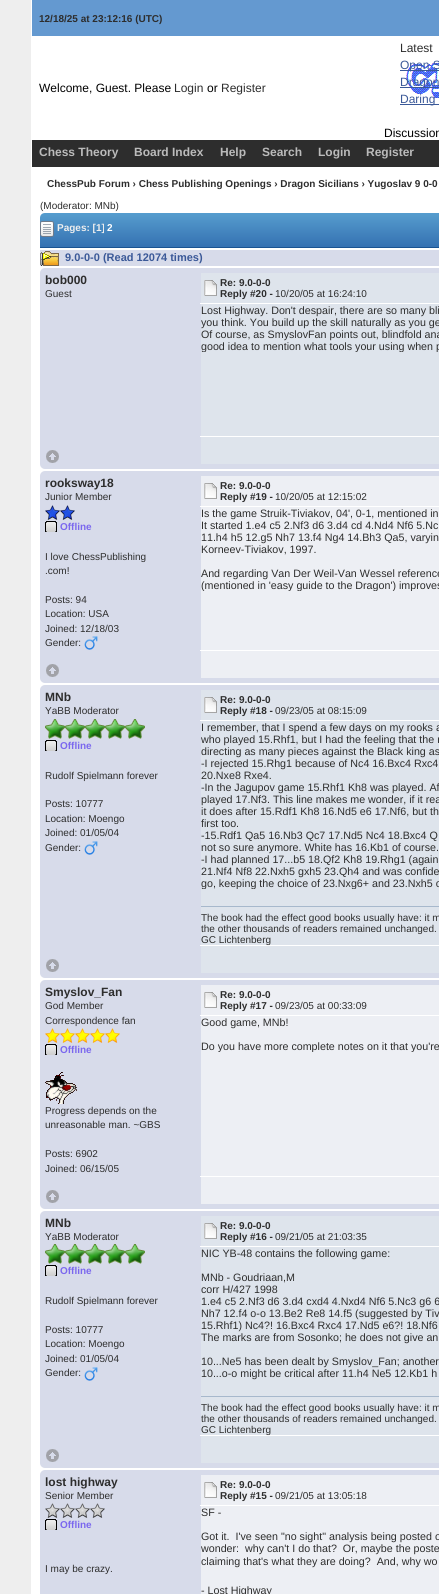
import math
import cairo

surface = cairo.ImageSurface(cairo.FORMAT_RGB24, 439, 1594)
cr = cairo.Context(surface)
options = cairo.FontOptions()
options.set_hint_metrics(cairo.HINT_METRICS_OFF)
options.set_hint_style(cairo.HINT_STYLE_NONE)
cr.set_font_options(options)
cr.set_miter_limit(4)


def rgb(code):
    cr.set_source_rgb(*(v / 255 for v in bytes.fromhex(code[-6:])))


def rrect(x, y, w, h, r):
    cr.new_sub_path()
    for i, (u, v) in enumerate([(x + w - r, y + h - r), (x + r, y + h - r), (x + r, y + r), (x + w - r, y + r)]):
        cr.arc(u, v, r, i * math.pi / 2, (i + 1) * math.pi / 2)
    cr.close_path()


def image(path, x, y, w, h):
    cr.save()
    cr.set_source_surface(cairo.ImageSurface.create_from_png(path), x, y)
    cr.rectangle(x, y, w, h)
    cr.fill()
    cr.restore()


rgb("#eeeeee")
cr.paint()
rgb("#ffffff")
cr.rectangle(31, 0, 408, 1594)
cr.fill()
rgb("#6499d0")
cr.rectangle(32, 0, 407, 36)
cr.fill()
image("img/1.png", 406, 63, 33, 35)
for x, y, w, h, color in [
    (400, 70, 39, 1, "#3b5998"),
    (400, 87, 39, 1, "#3b5998"),
    (400, 104, 39, 1, "#3b5998"),
    (32, 140, 407, 27, "#2d2d2d"),
]:
    rgb(color)
    cr.rectangle(x, y, w, h)
    cr.fill()
gradient = cairo.LinearGradient(387, 213, 387, 247)
gradient.add_color_stop_rgba(0, 0.337, 0.616, 0.808, 1)
gradient.add_color_stop_rgba(1, 0.208, 0.443, 0.698, 1)
cr.set_source(gradient)
cr.new_path()
cr.move_to(45, 213)
cr.line_to(439, 213)
cr.curve_to(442, 213, 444, 215, 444, 218)
cr.line_to(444, 247)
cr.line_to(40, 247)
cr.line_to(40, 218)
cr.curve_to(40, 215, 42, 213, 45, 213)
cr.close_path()
cr.fill()
rgb("#195392")
cr.rectangle(40, 247, 399, 1)
cr.fill()
image("img/2.png", 40, 221, 14, 16)
rgb("#d7dbea")
cr.rectangle(40, 250, 399, 16)
cr.fill()
image("img/3.png", 40, 251, 19, 15)
rrect(40, 268, 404, 201, 5)
cr.fill()
rgb("#dee4ec")
cr.rectangle(201, 273, 238, 30)
cr.fill()
rgb("#ffffff")
cr.rectangle(200, 303, 239, 1)
cr.fill()
image("img/4.png", 204, 280, 13, 16)
rgb("#dee4ec")
cr.rectangle(201, 304, 238, 132)
cr.fill()
image("img/5.png", 46, 450, 13, 13)
cr.rectangle(201, 437, 238, 27)
cr.fill()
rgb("#ffffff")
cr.rectangle(200, 436, 239, 1)
cr.fill()
rgb("#d7dbea")
rrect(40, 471, 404, 212, 5)
cr.fill()
rgb("#edeff4")
cr.rectangle(201, 476, 238, 30)
cr.fill()
image("img/6.png", 45, 505, 15, 15)
image("img/6.png", 60, 505, 15, 15)
image("img/7.png", 45, 521, 12, 11)
image("img/8.png", 84, 636, 14, 14)
rgb("#ffffff")
cr.rectangle(200, 506, 239, 1)
cr.fill()
image("img/9.png", 204, 483, 13, 16)
rgb("#edeff4")
cr.rectangle(201, 507, 238, 143)
cr.fill()
image("img/5.png", 46, 664, 13, 13)
cr.rectangle(201, 651, 238, 27)
cr.fill()
rgb("#ffffff")
cr.rectangle(200, 650, 239, 1)
cr.fill()
rgb("#d7dbea")
rrect(40, 685, 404, 293, 5)
cr.fill()
rgb("#dee4ec")
cr.rectangle(201, 690, 238, 30)
cr.fill()
image("img/10.png", 45, 719, 20, 20)
image("img/10.png", 65, 719, 20, 20)
image("img/10.png", 85, 719, 20, 20)
image("img/10.png", 105, 719, 20, 20)
image("img/10.png", 125, 719, 20, 20)
image("img/7.png", 45, 740, 12, 11)
image("img/8.png", 84, 841, 14, 14)
rgb("#ffffff")
cr.rectangle(200, 720, 239, 1)
cr.fill()
image("img/4.png", 204, 697, 13, 16)
rgb("#dee4ec")
cr.rectangle(201, 721, 238, 224)
cr.fill()
rgb("#a7b8cc")
cr.rectangle(201, 906, 238, 1)
cr.fill()
image("img/5.png", 46, 959, 13, 13)
rgb("#dee4ec")
cr.rectangle(201, 946, 238, 27)
cr.fill()
rgb("#ffffff")
cr.rectangle(200, 945, 239, 1)
cr.fill()
rgb("#d7dbea")
rrect(40, 980, 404, 229, 5)
cr.fill()
rgb("#edeff4")
cr.rectangle(201, 985, 238, 30)
cr.fill()
image("img/11.png", 45, 1028, 15, 15)
image("img/11.png", 60, 1028, 15, 15)
image("img/11.png", 75, 1028, 15, 15)
image("img/11.png", 90, 1028, 15, 15)
image("img/11.png", 105, 1028, 15, 15)
image("img/7.png", 45, 1044, 12, 11)
image("img/12.png", 45, 1072, 32, 32)
rgb("#ffffff")
cr.rectangle(200, 1015, 239, 1)
cr.fill()
image("img/9.png", 204, 992, 13, 16)
rgb("#edeff4")
cr.rectangle(201, 1016, 238, 160)
cr.fill()
image("img/5.png", 46, 1190, 13, 13)
cr.rectangle(201, 1177, 238, 27)
cr.fill()
rgb("#ffffff")
cr.rectangle(200, 1176, 239, 1)
cr.fill()
rgb("#d7dbea")
rrect(40, 1211, 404, 257, 5)
cr.fill()
rgb("#dee4ec")
cr.rectangle(201, 1216, 238, 30)
cr.fill()
image("img/10.png", 45, 1244, 20, 20)
image("img/10.png", 65, 1244, 20, 20)
image("img/10.png", 85, 1244, 20, 20)
image("img/10.png", 105, 1244, 20, 20)
image("img/10.png", 125, 1244, 20, 20)
image("img/7.png", 45, 1265, 12, 11)
image("img/8.png", 84, 1367, 14, 14)
rgb("#ffffff")
cr.rectangle(200, 1246, 239, 1)
cr.fill()
image("img/4.png", 204, 1223, 13, 16)
rgb("#dee4ec")
cr.rectangle(201, 1247, 238, 188)
cr.fill()
rgb("#a7b8cc")
cr.rectangle(201, 1396, 238, 1)
cr.fill()
image("img/5.png", 46, 1449, 13, 13)
rgb("#dee4ec")
cr.rectangle(201, 1436, 238, 27)
cr.fill()
rgb("#ffffff")
cr.rectangle(200, 1435, 239, 1)
cr.fill()
rgb("#d7dbea")
rrect(40, 1470, 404, 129, 5)
cr.fill()
rgb("#edeff4")
cr.rectangle(201, 1475, 238, 30)
cr.fill()
image("img/13.png", 45, 1503, 15, 15)
image("img/13.png", 60, 1503, 15, 15)
image("img/13.png", 75, 1503, 15, 15)
image("img/13.png", 90, 1503, 15, 15)
image("img/7.png", 45, 1519, 12, 11)
rgb("#ffffff")
cr.rectangle(200, 1505, 239, 1)
cr.fill()
image("img/9.png", 204, 1482, 13, 16)
rgb("#edeff4")
cr.rectangle(201, 1506, 238, 88)
cr.fill()
cr.select_font_face("Liberation Sans", cairo.FONT_SLANT_NORMAL, cairo.FONT_WEIGHT_BOLD)
cr.set_font_size(10)
rgb("#2d2d2d")
cr.move_to(39, 22)
cr.show_text("12/18/25 at 23:12:16 (UTC)")
cr.select_font_face("Liberation Sans")
cr.set_font_size(12)
cr.move_to(400, 52)
cr.show_text("Latest")
rgb("#3b5998")
for x, y, s in [
    (400, 69, "Open S"),
    (400, 86, "Dragon"),
    (400, 103, "Daring"),
]:
    cr.move_to(x, y)
    cr.show_text(s)
rgb("#000000")
cr.move_to(39, 92)
cr.show_text("Welcome, Guest. Please")
rgb("#2d2d2d")
cr.move_to(174, 92)
cr.show_text("Login")
rgb("#000000")
cr.move_to(207, 92)
cr.show_text("or")
rgb("#2d2d2d")
cr.move_to(221, 92)
cr.show_text("Register")
rgb("#000000")
cr.move_to(384, 137)
cr.show_text("Discussion")
cr.select_font_face("Liberation Sans", cairo.FONT_SLANT_NORMAL, cairo.FONT_WEIGHT_BOLD)
rgb("#bbbbbb")
for x, y, s in [
    (39, 156, "Chess Theory"),
    (134, 156, "Board Index"),
    (220, 156, "Help"),
    (262, 156, "Search"),
    (318, 156, "Login"),
    (366, 156, "Register"),
]:
    cr.move_to(x, y)
    cr.show_text(s)
cr.set_font_size(10)
rgb("#2d2d2d")
cr.move_to(47, 187)
cr.show_text("ChessPub Forum › Chess Publishing Openings › Dragon Sicilians › Yugoslav 9 0-0")
cr.select_font_face("Liberation Sans")
cr.move_to(40, 209)
cr.show_text("(Moderator: MNb)")
cr.select_font_face("Liberation Sans", cairo.FONT_SLANT_NORMAL, cairo.FONT_WEIGHT_BOLD)
rgb("#eeeeee")
cr.move_to(57, 231)
cr.show_text("Pages: [1]")
rgb("#ffffff")
cr.move_to(107, 231)
cr.show_text("2")
cr.set_font_size(11)
rgb("#3b5998")
cr.move_to(65, 261)
cr.show_text("9.0-0-0 (Read 12074 times)")
cr.set_font_size(12)
rgb("#2d2d2d")
cr.move_to(45, 284)
cr.show_text("bob000")
cr.select_font_face("Liberation Sans")
cr.set_font_size(10)
cr.move_to(45, 297)
cr.show_text("Guest")
cr.select_font_face("Liberation Sans", cairo.FONT_SLANT_NORMAL, cairo.FONT_WEIGHT_BOLD)
cr.move_to(220, 286)
cr.show_text("Re: 9.0-0-0")
cr.move_to(220, 297)
cr.show_text("Reply #20 -")
cr.select_font_face("Liberation Sans")
cr.move_to(275, 297)
cr.show_text("10/20/05 at 16:24:10")
cr.set_font_size(10.7)
for x, y, s in [
    (201, 314, "Lost Highway. Don't despair, there are so many bli"),
    (201, 326, "you think. You build up the skill naturally as you ge"),
    (201, 338, "Of course, as SmyslovFan points out, blindfold ana"),
]:
    cr.move_to(x, y)
    cr.show_text(s)
cr.save()
cr.rectangle(201, 304, 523, 48)
cr.clip()
cr.move_to(201, 350)
cr.show_text("good idea to mention what tools your using when p")
cr.restore()
cr.select_font_face("Liberation Sans", cairo.FONT_SLANT_NORMAL, cairo.FONT_WEIGHT_BOLD)
cr.set_font_size(12)
cr.move_to(45, 487)
cr.show_text("rooksway18")
cr.select_font_face("Liberation Sans")
cr.set_font_size(10)
cr.move_to(45, 500)
cr.show_text("Junior Member")
cr.select_font_face("Liberation Sans", cairo.FONT_SLANT_NORMAL, cairo.FONT_WEIGHT_BOLD)
rgb("#7b68ee")
cr.move_to(60, 530)
cr.show_text("Offline")
cr.select_font_face("Liberation Sans")
rgb("#2d2d2d")
for x, y, s in [
    (45, 560, "I love ChessPublishing"),
    (45, 574, ".com!"),
    (45, 603, "Posts: 94"),
    (45, 617, "Location: USA"),
    (45, 632, "Joined: 12/18/03"),
    (45, 646, "Gender:"),
]:
    cr.move_to(x, y)
    cr.show_text(s)
cr.select_font_face("Liberation Sans", cairo.FONT_SLANT_NORMAL, cairo.FONT_WEIGHT_BOLD)
cr.move_to(220, 489)
cr.show_text("Re: 9.0-0-0")
cr.move_to(220, 500)
cr.show_text("Reply #19 -")
cr.select_font_face("Liberation Sans")
cr.move_to(275, 500)
cr.show_text("10/20/05 at 12:15:02")
cr.set_font_size(10.7)
for x, y, s in [
    (201, 517, "Is the game Struik-Tiviakov, 04', 0-1, mentioned in"),
    (201, 529, "It started 1.e4 c5 2.Nf3 d6 3.d4 cd 4.Nd4 Nf6 5.Nc"),
    (201, 541, "11.h4 h5 12.g5 Nh7 13.f4 Ng4 14.Bh3 Qa5, varyin"),
    (201, 553, "Korneev-Tiviakov, 1997."),
    (201, 577, "And regarding Van Der Weil-Van Wessel reference"),
]:
    cr.move_to(x, y)
    cr.show_text(s)
cr.save()
cr.rectangle(201, 507, 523, 84)
cr.clip()
cr.move_to(201, 589)
cr.show_text("(mentioned in 'easy guide to the Dragon') improves")
cr.restore()
cr.select_font_face("Liberation Sans", cairo.FONT_SLANT_NORMAL, cairo.FONT_WEIGHT_BOLD)
cr.set_font_size(12)
cr.move_to(45, 701)
cr.show_text("MNb")
cr.select_font_face("Liberation Sans")
cr.set_font_size(10)
cr.move_to(45, 714)
cr.show_text("YaBB Moderator")
cr.select_font_face("Liberation Sans", cairo.FONT_SLANT_NORMAL, cairo.FONT_WEIGHT_BOLD)
rgb("#7b68ee")
cr.move_to(60, 749)
cr.show_text("Offline")
cr.select_font_face("Liberation Sans")
rgb("#2d2d2d")
for x, y, s in [
    (45, 779, "Rudolf Spielmann forever"),
    (45, 807, "Posts: 10777"),
    (45, 822, "Location: Moengo"),
    (45, 836, "Joined: 01/05/04"),
    (45, 851, "Gender:"),
]:
    cr.move_to(x, y)
    cr.show_text(s)
cr.select_font_face("Liberation Sans", cairo.FONT_SLANT_NORMAL, cairo.FONT_WEIGHT_BOLD)
cr.move_to(220, 703)
cr.show_text("Re: 9.0-0-0")
cr.move_to(220, 714)
cr.show_text("Reply #18 -")
cr.select_font_face("Liberation Sans")
cr.move_to(275, 714)
cr.show_text("09/23/05 at 08:15:09")
cr.set_font_size(10.7)
for x, y, s in [
    (201, 731, "I remember, that I spend a few days on my rooks a"),
    (201, 743, "who played 15.Rhf1, but I had the feeling that the r"),
    (201, 755, "directing as many pieces against the Black king as"),
    (201, 767, "-I rejected 15.Rhg1 because of Nc4 16.Bxc4 Rxc4"),
    (201, 779, "20.Nxe8 Rxe4."),
    (201, 791, "-In the Jagupov game 15.Rhf1 Kh8 was played. Af"),
    (201, 803, "played 17.Nf3. This line makes me wonder, if it rea"),
    (201, 815, "it does after 15.Rdf1 Kh8 16.Nd5 e6 17.Nf6, but th"),
    (201, 827, "first too."),
    (201, 839, "-15.Rdf1 Qa5 16.Nb3 Qc7 17.Nd5 Nc4 18.Bxc4 Q"),
    (201, 851, "not so sure anymore. White has 16.Kb1 of course."),
    (201, 863, "-I had planned 17...b5 18.Qf2 Kh8 19.Rhg1 (again"),
    (201, 875, "21.Nf4 Nf8 22.Nxh5 gxh5 23.Qh4 and was confide"),
]:
    cr.move_to(x, y)
    cr.show_text(s)
cr.save()
cr.rectangle(201, 721, 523, 168)
cr.clip()
cr.move_to(201, 887)
cr.show_text("go, keeping the choice of 23.Nxg6+ and 23.Nxh5 o")
cr.restore()
cr.set_font_size(10)
for x, y, s in [
    (201, 921, "The book had the effect good books usually have: it m"),
    (201, 932, "the other thousands of readers remained unchanged."),
    (201, 943, "GC Lichtenberg"),
]:
    cr.move_to(x, y)
    cr.show_text(s)
cr.select_font_face("Liberation Sans", cairo.FONT_SLANT_NORMAL, cairo.FONT_WEIGHT_BOLD)
cr.set_font_size(12)
cr.move_to(45, 996)
cr.show_text("Smyslov_Fan")
cr.select_font_face("Liberation Sans")
cr.set_font_size(10)
cr.move_to(45, 1009)
cr.show_text("God Member")
cr.move_to(45, 1024)
cr.show_text("Correspondence fan")
cr.select_font_face("Liberation Sans", cairo.FONT_SLANT_NORMAL, cairo.FONT_WEIGHT_BOLD)
rgb("#7b68ee")
cr.move_to(60, 1053)
cr.show_text("Offline")
cr.select_font_face("Liberation Sans")
rgb("#2d2d2d")
for x, y, s in [
    (45, 1114, "Progress depends on the"),
    (45, 1128, "unreasonable man. ~GBS"),
    (45, 1157, "Posts: 6902"),
    (45, 1172, "Joined: 06/15/05"),
]:
    cr.move_to(x, y)
    cr.show_text(s)
cr.select_font_face("Liberation Sans", cairo.FONT_SLANT_NORMAL, cairo.FONT_WEIGHT_BOLD)
cr.move_to(220, 998)
cr.show_text("Re: 9.0-0-0")
cr.move_to(220, 1009)
cr.show_text("Reply #17 -")
cr.select_font_face("Liberation Sans")
cr.move_to(275, 1009)
cr.show_text("09/23/05 at 00:33:09")
cr.set_font_size(10.7)
cr.move_to(201, 1026)
cr.show_text("Good game, MNb!")
cr.save()
cr.rectangle(201, 1016, 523, 36)
cr.clip()
cr.move_to(201, 1050)
cr.show_text("Do you have more complete notes on it that you're")
cr.restore()
cr.select_font_face("Liberation Sans", cairo.FONT_SLANT_NORMAL, cairo.FONT_WEIGHT_BOLD)
cr.set_font_size(12)
cr.move_to(45, 1227)
cr.show_text("MNb")
cr.select_font_face("Liberation Sans")
cr.set_font_size(10)
cr.move_to(45, 1240)
cr.show_text("YaBB Moderator")
cr.select_font_face("Liberation Sans", cairo.FONT_SLANT_NORMAL, cairo.FONT_WEIGHT_BOLD)
rgb("#7b68ee")
cr.move_to(60, 1274)
cr.show_text("Offline")
cr.select_font_face("Liberation Sans")
rgb("#2d2d2d")
for x, y, s in [
    (45, 1304, "Rudolf Spielmann forever"),
    (45, 1333, "Posts: 10777"),
    (45, 1347, "Location: Moengo"),
    (45, 1362, "Joined: 01/05/04"),
    (45, 1376, "Gender:"),
]:
    cr.move_to(x, y)
    cr.show_text(s)
cr.select_font_face("Liberation Sans", cairo.FONT_SLANT_NORMAL, cairo.FONT_WEIGHT_BOLD)
cr.move_to(220, 1229)
cr.show_text("Re: 9.0-0-0")
cr.move_to(220, 1240)
cr.show_text("Reply #16 -")
cr.select_font_face("Liberation Sans")
cr.move_to(275, 1240)
cr.show_text("09/21/05 at 21:03:35")
cr.set_font_size(10.7)
for x, y, s in [
    (201, 1257, "NIC YB-48 contains the following game:"),
    (201, 1281, "MNb - Goudriaan,M"),
    (201, 1293, "corr H/427 1998"),
    (201, 1305, "1.e4 c5 2.Nf3 d6 3.d4 cxd4 4.Nxd4 Nf6 5.Nc3 g6 6"),
    (201, 1317, "Nh7 12.f4 o-o 13.Be2 Re8 14.f5 (suggested by Tiv"),
    (201, 1329, "15.Rhf1) Nc4?! 16.Bxc4 Rxc4 17.Nd5 e6?! 18.Nf6"),
    (201, 1341, "The marks are from Sosonko; he does not give an"),
    (201, 1365, "10...Ne5 has been dealt by Smyslov_Fan; another"),
    (201, 1377, "10...o-o might be critical after 11.h4 Ne5 12.Kb1 h"),
]:
    cr.move_to(x, y)
    cr.show_text(s)
cr.set_font_size(10)
for x, y, s in [
    (201, 1411, "The book had the effect good books usually have: it m"),
    (201, 1422, "the other thousands of readers remained unchanged."),
    (201, 1433, "GC Lichtenberg"),
]:
    cr.move_to(x, y)
    cr.show_text(s)
cr.select_font_face("Liberation Sans", cairo.FONT_SLANT_NORMAL, cairo.FONT_WEIGHT_BOLD)
cr.set_font_size(12)
cr.move_to(45, 1486)
cr.show_text("lost highway")
cr.select_font_face("Liberation Sans")
cr.set_font_size(10)
cr.move_to(45, 1499)
cr.show_text("Senior Member")
cr.select_font_face("Liberation Sans", cairo.FONT_SLANT_NORMAL, cairo.FONT_WEIGHT_BOLD)
rgb("#7b68ee")
cr.move_to(60, 1528)
cr.show_text("Offline")
cr.select_font_face("Liberation Sans")
rgb("#2d2d2d")
cr.move_to(45, 1572)
cr.show_text("I may be crazy.")
cr.select_font_face("Liberation Sans", cairo.FONT_SLANT_NORMAL, cairo.FONT_WEIGHT_BOLD)
cr.move_to(220, 1488)
cr.show_text("Re: 9.0-0-0")
cr.move_to(220, 1499)
cr.show_text("Reply #15 -")
cr.select_font_face("Liberation Sans")
cr.move_to(275, 1499)
cr.show_text("09/21/05 at 13:05:18")
cr.set_font_size(10.7)
for x, y, s in [
    (201, 1516, "SF -"),
    (201, 1540, "Got it.  I've seen \"no sight\" analysis being posted o"),
    (201, 1552, "wonder:  why can't I do that?  Or, maybe the poste"),
    (201, 1565, "claiming that's what they are doing?  And, why wo"),
    (201, 1594, "- Lost Highway"),
]:
    cr.move_to(x, y)
    cr.show_text(s)
surface.write_to_png("page.png")
